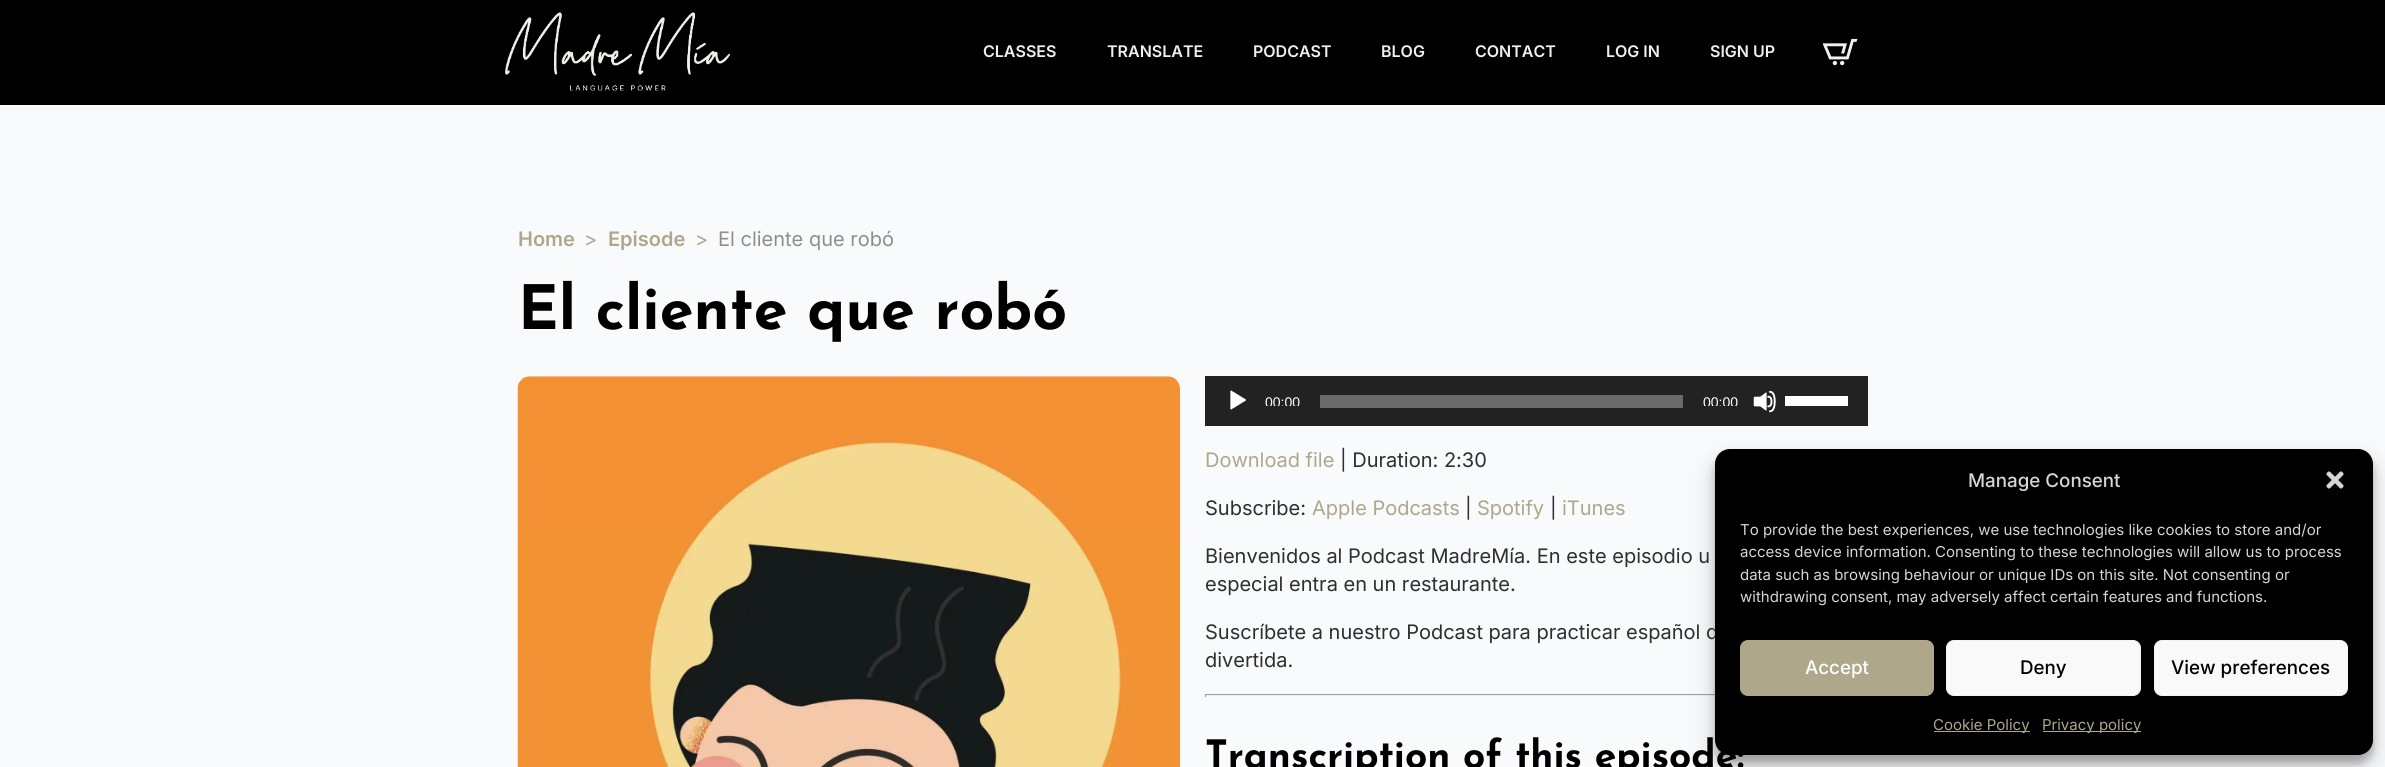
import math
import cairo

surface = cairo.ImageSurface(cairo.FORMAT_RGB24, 2385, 767)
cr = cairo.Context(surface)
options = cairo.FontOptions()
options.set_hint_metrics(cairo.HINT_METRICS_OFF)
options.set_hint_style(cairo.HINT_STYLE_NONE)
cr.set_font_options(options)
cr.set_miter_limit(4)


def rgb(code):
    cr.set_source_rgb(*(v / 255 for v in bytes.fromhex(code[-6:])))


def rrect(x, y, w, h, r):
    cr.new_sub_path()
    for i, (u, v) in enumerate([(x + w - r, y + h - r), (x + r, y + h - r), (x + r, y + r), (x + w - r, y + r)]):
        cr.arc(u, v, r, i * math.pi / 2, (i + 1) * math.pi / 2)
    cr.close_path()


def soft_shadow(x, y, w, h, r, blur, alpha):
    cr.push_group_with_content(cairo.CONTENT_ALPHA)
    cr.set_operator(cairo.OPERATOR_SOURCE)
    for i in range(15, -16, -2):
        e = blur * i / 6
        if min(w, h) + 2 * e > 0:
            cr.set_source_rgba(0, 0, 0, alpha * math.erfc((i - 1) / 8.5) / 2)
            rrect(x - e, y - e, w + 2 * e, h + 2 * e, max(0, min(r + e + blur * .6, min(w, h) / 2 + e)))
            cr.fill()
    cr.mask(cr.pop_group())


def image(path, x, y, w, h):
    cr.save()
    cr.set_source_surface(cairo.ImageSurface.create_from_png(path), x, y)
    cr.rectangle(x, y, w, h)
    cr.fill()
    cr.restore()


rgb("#f9fafb")
cr.paint()
rgb("#000000")
cr.rectangle(0, 0, 2385, 105)
cr.fill()
image("img/1.png", 505, 12, 225, 79)
image("img/2.png", 1823, 38, 35, 28)
image("img/3.png", 517, 376, 663, 391)
rgb("#222222")
cr.rectangle(1205, 376, 663, 50)
cr.fill()
image("img/4.png", 1230, 390, 16, 20)
rgb("#6b6b6b")
cr.rectangle(1320, 395, 363, 13)
cr.fill()
image("img/5.png", 1753, 390, 23, 23)
for x, y, w, h, color in [
    (1785, 396, 63, 10, "#ffffff"),
    (1205, 694, 510, 1, "#9f9f9f"),
    (1205, 695, 510, 1, "#eeeeee"),
    (1205, 694, 1, 3, "#9f9f9f"),
]:
    rgb(color)
    cr.rectangle(x, y, w, h)
    cr.fill()
rgb("#000000")
soft_shadow(1715, 456, 658, 307, 15, 4, 0.23)
soft_shadow(1715, 461, 658, 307, 15, 12.5, 0.19)
cr.select_font_face("Inter SemiBold")
cr.set_font_size(16)
rgb("#f1eeeb")
for x, y, s in [
    (983, 57, "CLASSES"),
    (1107, 57, "TRANSLATE"),
    (1253, 57, "PODCAST"),
    (1381, 57, "BLOG"),
    (1475, 57, "CONTACT"),
    (1606, 57, "LOG IN"),
    (1710, 57, "SIGN UP"),
]:
    cr.move_to(x, y)
    cr.show_text(s)
cr.set_font_size(20)
rgb("#aea78a")
cr.move_to(518, 246)
cr.show_text("Home")
cr.select_font_face("Inter")
cr.move_to(584, 246)
cr.show_text(">")
cr.select_font_face("Inter SemiBold")
cr.move_to(608, 246)
cr.show_text("Episode")
cr.select_font_face("Inter")
cr.move_to(695, 246)
cr.show_text(">")
rgb("#8e8e8e")
cr.move_to(718, 246)
cr.show_text("El cliente que robó")
cr.select_font_face("Josefin Sans", cairo.FONT_SLANT_NORMAL, cairo.FONT_WEIGHT_BOLD)
cr.set_font_size(61)
rgb("#000000")
cr.move_to(518, 329)
cr.show_text("El cliente que robó")
cr.save()
cr.rectangle(1258, 376, 50, 30)
cr.clip()
cr.select_font_face("Liberation Sans")
cr.set_font_size(14)
rgb("#ffffff")
cr.move_to(1265, 407)
cr.show_text("00:00")
cr.restore()
cr.save()
cr.rectangle(1695, 376, 50, 30)
cr.clip()
cr.select_font_face("Liberation Sans")
cr.set_font_size(14)
rgb("#ffffff")
cr.move_to(1703, 407)
cr.show_text("00:00")
cr.restore()
cr.select_font_face("Inter")
cr.set_font_size(20)
rgb("#aea78a")
cr.move_to(1205, 467)
cr.show_text("Download file")
rgb("#2f2f2f")
cr.move_to(1340, 467)
cr.show_text("| Duration: 2:30")
cr.move_to(1205, 515)
cr.show_text("Subscribe:")
rgb("#aea78a")
cr.move_to(1312, 515)
cr.show_text("Apple Podcasts")
rgb("#2f2f2f")
cr.move_to(1465, 515)
cr.show_text("|")
rgb("#aea78a")
cr.move_to(1477, 515)
cr.show_text("Spotify")
rgb("#2f2f2f")
cr.move_to(1550, 515)
cr.show_text("|")
rgb("#aea78a")
cr.move_to(1562, 515)
cr.show_text("iTunes")
rgb("#2f2f2f")
for x, y, s in [
    (1205, 563, "Bienvenidos al Podcast MadreMía. En este episodio u"),
    (1205, 591, "especial entra en un restaurante."),
    (1205, 639, "Suscríbete a nuestro Podcast para practicar español d"),
    (1205, 667, "divertida."),
]:
    cr.move_to(x, y)
    cr.show_text(s)
cr.select_font_face("Josefin Sans", cairo.FONT_SLANT_NORMAL, cairo.FONT_WEIGHT_BOLD)
cr.set_font_size(39)
rgb("#000000")
cr.move_to(1205, 768)
cr.show_text("Transcription of this episode:")
rrect(1715, 449, 658, 306, 15)
cr.fill()
cr.select_font_face("Inter Medium")
cr.set_font_size(18.75)
rgb("#d6d6d6")
cr.move_to(1968, 487)
cr.show_text("Manage Consent")
image("img/6.png", 2326, 471, 18, 18)
cr.select_font_face("Inter")
cr.set_font_size(15)
for x, y, s in [
    (1740, 535, "To provide the best experiences, we use technologies like cookies to store and/or"),
    (1740, 557, "access device information. Consenting to these technologies will allow us to process"),
    (1740, 580, "data such as browsing behaviour or unique IDs on this site. Not consenting or"),
    (1740, 602, "withdrawing consent, may adversely affect certain features and functions."),
]:
    cr.move_to(x, y)
    cr.show_text(s)
rgb("#aea78a")
rrect(1740.5, 640.5, 193, 55, 7.5)
cr.fill_preserve()
cr.set_line_width(1)
cr.stroke()
cr.select_font_face("Inter Medium")
cr.set_font_size(18.75)
rgb("#ffffff")
cr.move_to(1805, 674)
cr.show_text("Accept")
rgb("#f9f9f9")
rrect(1946.5, 640.5, 194, 55, 7.5)
cr.fill_preserve()
rgb("#f2f2f2")
cr.stroke()
rgb("#000000")
cr.move_to(2020, 674)
cr.show_text("Deny")
rgb("#f9f9f9")
rrect(2154.5, 640.5, 193, 55, 7.5)
cr.fill_preserve()
rgb("#f2f2f2")
cr.stroke()
rgb("#000000")
cr.move_to(2171, 674)
cr.show_text("View preferences")
rgb("#aea78a")
cr.rectangle(1934, 731, 96, 1)
cr.fill()
cr.select_font_face("Inter")
cr.set_font_size(15)
cr.move_to(1933, 730)
cr.show_text("Cookie Policy")
cr.rectangle(2043, 731, 98, 1)
cr.fill()
cr.move_to(2042, 730)
cr.show_text("Privacy policy")
surface.write_to_png("page.png")
